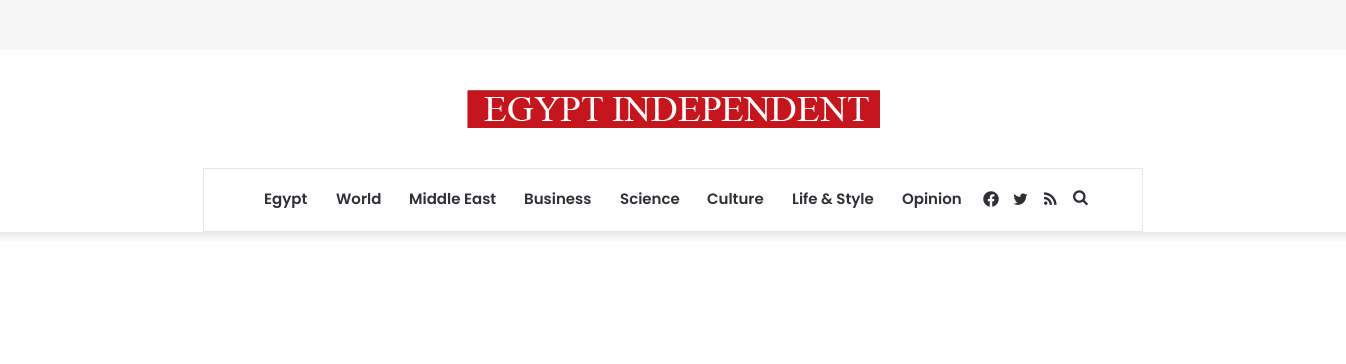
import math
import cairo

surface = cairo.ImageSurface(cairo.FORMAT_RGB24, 1346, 364)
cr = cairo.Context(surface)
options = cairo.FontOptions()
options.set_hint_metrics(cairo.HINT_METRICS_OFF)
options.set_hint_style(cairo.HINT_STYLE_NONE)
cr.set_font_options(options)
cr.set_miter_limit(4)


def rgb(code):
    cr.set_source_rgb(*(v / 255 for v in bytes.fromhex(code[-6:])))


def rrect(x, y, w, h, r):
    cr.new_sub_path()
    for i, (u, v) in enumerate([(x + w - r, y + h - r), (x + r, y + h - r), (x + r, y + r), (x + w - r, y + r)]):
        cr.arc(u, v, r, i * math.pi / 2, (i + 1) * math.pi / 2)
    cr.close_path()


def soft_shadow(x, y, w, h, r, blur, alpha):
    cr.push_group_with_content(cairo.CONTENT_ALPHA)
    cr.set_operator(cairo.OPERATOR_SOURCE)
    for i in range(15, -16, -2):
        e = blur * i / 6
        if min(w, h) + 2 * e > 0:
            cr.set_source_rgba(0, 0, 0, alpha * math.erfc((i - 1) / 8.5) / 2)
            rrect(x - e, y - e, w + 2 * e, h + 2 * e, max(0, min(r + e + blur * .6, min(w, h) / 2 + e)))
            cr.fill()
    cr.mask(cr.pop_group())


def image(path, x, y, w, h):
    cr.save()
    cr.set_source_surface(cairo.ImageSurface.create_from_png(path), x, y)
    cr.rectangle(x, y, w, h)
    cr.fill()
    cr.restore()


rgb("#f7f7f7")
cr.paint()
rgb("#ffffff")
cr.rectangle(0, 50, 1346, 314)
cr.fill()
cr.save()
cr.rectangle(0, 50, 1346, 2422)
cr.clip()
cr.rectangle(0, 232, 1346, 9)
cr.clip()
rgb("#000000")
soft_shadow(-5, 45, 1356, 192, 0, 5, 0.1)
cr.restore()
image("img/1.png", 467, 90, 413, 38)
cr.rectangle(203.5, 168.5, 939, 63)
rgb("#e6e6e6")
cr.set_line_width(1)
cr.stroke()
image("img/2.png", 983, 191, 16, 16)
image("img/3.png", 1013, 193, 15, 12)
image("img/4.png", 1044, 192, 13, 13)
image("img/5.png", 1073, 190, 15, 16)
cr.select_font_face("Poppins SemiBold")
cr.set_font_size(15)
rgb("#2c2f34")
for x, y, s in [
    (264, 204, "Egypt"),
    (336, 204, "World"),
    (409, 204, "Middle East"),
    (524, 204, "Business"),
    (620, 204, "Science"),
    (707, 204, "Culture"),
    (792, 204, "Life & Style"),
    (902, 204, "Opinion"),
]:
    cr.move_to(x, y)
    cr.show_text(s)
surface.write_to_png("page.png")
